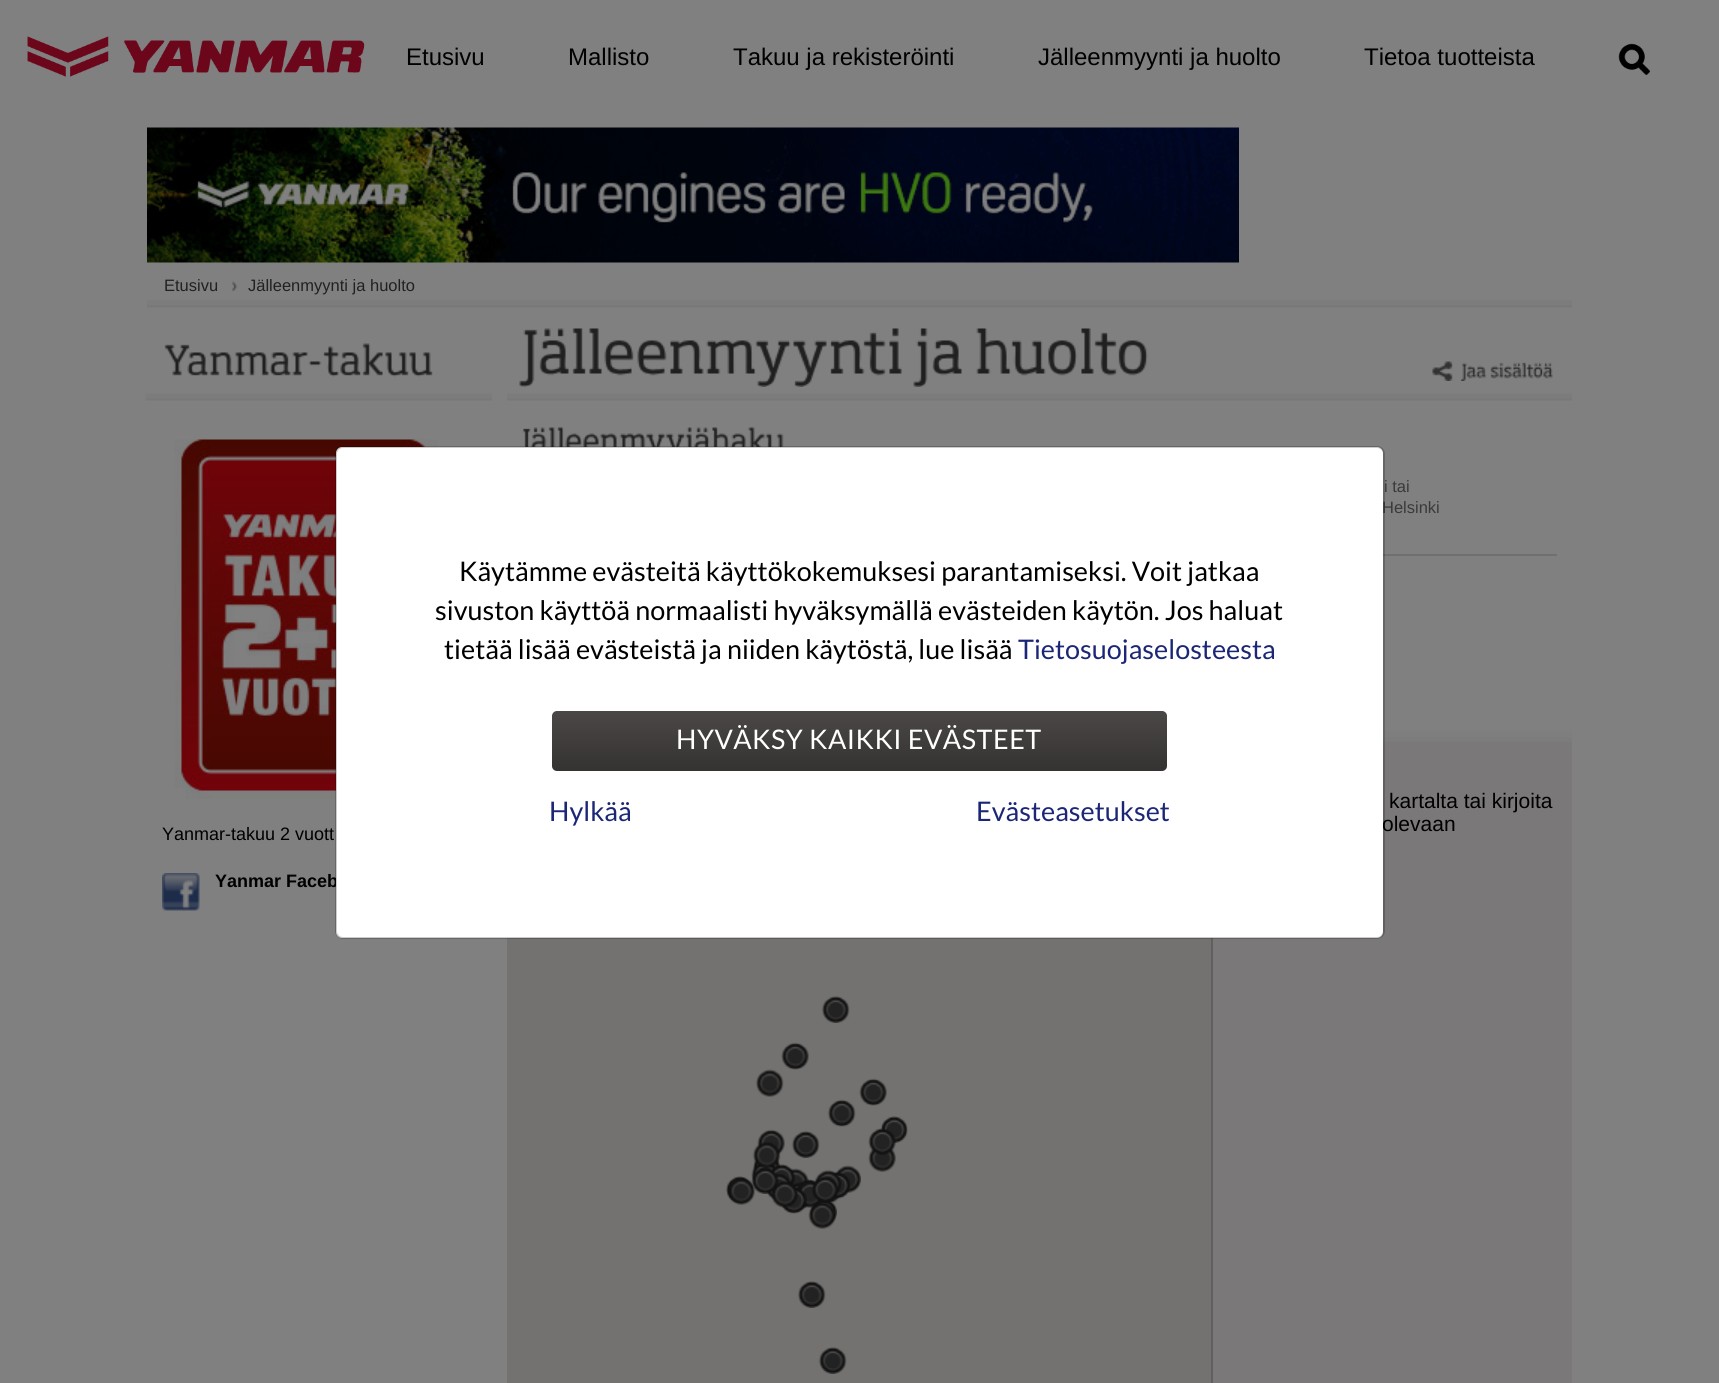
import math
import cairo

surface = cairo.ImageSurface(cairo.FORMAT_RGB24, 1719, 1383)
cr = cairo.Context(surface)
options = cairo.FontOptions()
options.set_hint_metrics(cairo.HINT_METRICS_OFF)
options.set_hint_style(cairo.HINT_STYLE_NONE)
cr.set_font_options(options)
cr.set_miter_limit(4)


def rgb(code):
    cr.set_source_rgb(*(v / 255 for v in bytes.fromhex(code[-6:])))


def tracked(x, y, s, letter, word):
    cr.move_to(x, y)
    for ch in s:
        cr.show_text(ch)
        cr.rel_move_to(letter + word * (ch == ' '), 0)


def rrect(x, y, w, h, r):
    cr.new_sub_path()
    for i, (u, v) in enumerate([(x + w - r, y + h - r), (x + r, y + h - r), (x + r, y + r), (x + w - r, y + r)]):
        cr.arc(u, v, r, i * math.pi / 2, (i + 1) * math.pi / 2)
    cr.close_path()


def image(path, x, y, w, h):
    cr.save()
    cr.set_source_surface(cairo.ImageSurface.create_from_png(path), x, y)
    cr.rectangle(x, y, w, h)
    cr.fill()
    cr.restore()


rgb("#808080")
cr.paint()
image("img/1.png", 27, 36, 338, 41)
image("img/2.png", 1618, 43, 32, 32)
image("img/3.png", 147, 127, 1092, 136)
image("img/4.png", 147, 300, 1425, 8)
image("img/5.png", 232, 281, 6, 10)
image("img/6.png", 507, 393, 1065, 8)
image("img/7.png", 519, 328, 383, 59)
image("img/8.png", 913, 328, 49, 59)
image("img/9.png", 976, 328, 172, 48)
image("img/10.png", 1432, 361, 21, 20)
image("img/11.png", 1461, 362, 26, 19)
image("img/12.png", 1490, 362, 63, 17)
image("img/13.png", 523, 427, 261, 20)
rgb("#707070")
cr.rectangle(1383, 554, 174, 2)
cr.fill()
rgb("#7a7878")
cr.rectangle(1213, 742, 359, 641)
cr.fill()
image("img/14.png", 1383, 684, 189, 58)
rgb("#606060")
cr.rectangle(1211, 938, 2, 445)
cr.fill()
rgb("#737270")
cr.rectangle(507, 938, 704, 445)
cr.fill()
image("img/15.png", 821, 996, 29, 27)
image("img/17.png", 755, 1069, 29, 28)
image("img/16.png", 781, 1042, 28, 28)
image("img/18.png", 859, 1078, 28, 28)
image("img/19.png", 827, 1099, 29, 28)
image("img/20.png", 880, 1116, 28, 27)
image("img/21.png", 757, 1129, 28, 27)
image("img/15.png", 791, 1131, 29, 27)
image("img/24.png", 868, 1147, 28, 25)
image("img/22.png", 868, 1128, 28, 27)
image("img/30.png", 778, 1167, 14, 6)
image("img/25.png", 753, 1157, 27, 15)
image("img/26.png", 751, 1162, 27, 23)
image("img/23.png", 752, 1142, 29, 27)
image("img/31.png", 790, 1168, 19, 20)
image("img/42.png", 790, 1182, 20, 28)
image("img/27.png", 770, 1164, 25, 23)
image("img/40.png", 815, 1178, 26, 26)
image("img/28.png", 835, 1165, 26, 28)
image("img/33.png", 726, 1176, 27, 27)
image("img/34.png", 766, 1173, 26, 28)
image("img/37.png", 727, 1177, 28, 28)
image("img/39.png", 795, 1179, 26, 27)
image("img/44.png", 810, 1199, 27, 27)
image("img/41.png", 798, 1180, 25, 28)
image("img/43.png", 781, 1187, 26, 27)
image("img/38.png", 771, 1180, 28, 28)
image("img/29.png", 751, 1167, 28, 27)
image("img/36.png", 830, 1171, 21, 28)
image("img/32.png", 814, 1169, 28, 28)
image("img/45.png", 808, 1202, 28, 27)
image("img/35.png", 811, 1176, 28, 27)
image("img/15.png", 797, 1281, 29, 27)
image("img/15.png", 818, 1347, 29, 27)
image("img/46.png", 145, 393, 347, 8)
image("img/47.png", 164, 343, 269, 34)
image("img/48.png", 174, 439, 264, 360)
image("img/49.png", 162, 873, 38, 38)
cr.select_font_face("Liberation Sans")
cr.set_font_size(24)
rgb("#000000")
for x, y, s in [
    (406, 65, "Etusivu"),
    (568, 65, "Mallisto"),
    (733, 65, "Takuu ja rekisteröinti"),
    (1038, 65, "Jälleenmyynti ja huolto"),
    (1364, 65, "Tietoa tuotteista"),
]:
    cr.move_to(x, y)
    cr.show_text(s)
cr.set_font_size(16.5)
rgb("#212121")
cr.move_to(164, 291)
cr.show_text("Etusivu")
cr.move_to(248, 291)
cr.show_text("Jälleenmyynti ja huolto")
rgb("#3a3a3a")
cr.move_to(1384, 492)
cr.show_text("i tai")
cr.move_to(1382, 513)
cr.show_text("Helsinki")
cr.set_font_size(21)
rgb("#000000")
cr.move_to(1389, 808)
cr.show_text("kartalta tai kirjoita")
cr.move_to(1382, 831)
cr.show_text("olevaan")
cr.set_font_size(18)
cr.move_to(162, 840)
cr.show_text("Yanmar-takuu 2 vuott")
cr.select_font_face("Liberation Sans", cairo.FONT_SLANT_NORMAL, cairo.FONT_WEIGHT_BOLD)
cr.move_to(215, 887)
cr.show_text("Yanmar Faceb")
rgb("#ffffff")
rrect(336, 447, 1047, 491, 6)
cr.fill()
rrect(336, 447, 1048, 491, 7)
cr.set_source_rgba(0, 0, 0, 0.2)
cr.stroke()
cr.select_font_face("Lato")
cr.set_font_size(27)
rgb("#000000")
for x, y, s in [
    (459, 581, "Käytämme evästeitä käyttökokemuksesi parantamiseksi. Voit jatkaa"),
    (435, 620, "sivuston käyttöä normaalisti hyväksymällä evästeiden käytön. Jos haluat"),
    (444, 659, "tietää lisää evästeistä ja niiden käytöstä, lue lisää"),
]:
    cr.move_to(x, y)
    cr.show_text(s)
rgb("#1b2776")
cr.move_to(1018, 659)
cr.show_text("Tietosuojaselosteesta")
gradient = cairo.LinearGradient(860, 711, 860, 771)
gradient.add_color_stop_rgba(0, 0.29, 0.278, 0.275, 1)
gradient.add_color_stop_rgba(1, 0.208, 0.2, 0.196, 1)
cr.set_source(gradient)
rrect(552, 711, 615, 60, 5)
cr.fill()
rgb("#ffffff")
tracked(676, 749, "HYVÄKSY KAIKKI EVÄSTEET", 0.5, 0)
rgb("#1b2776")
cr.move_to(549, 821)
cr.show_text("Hylkää")
cr.move_to(976, 821)
cr.show_text("Evästeasetukset")
surface.write_to_png("page.png")
